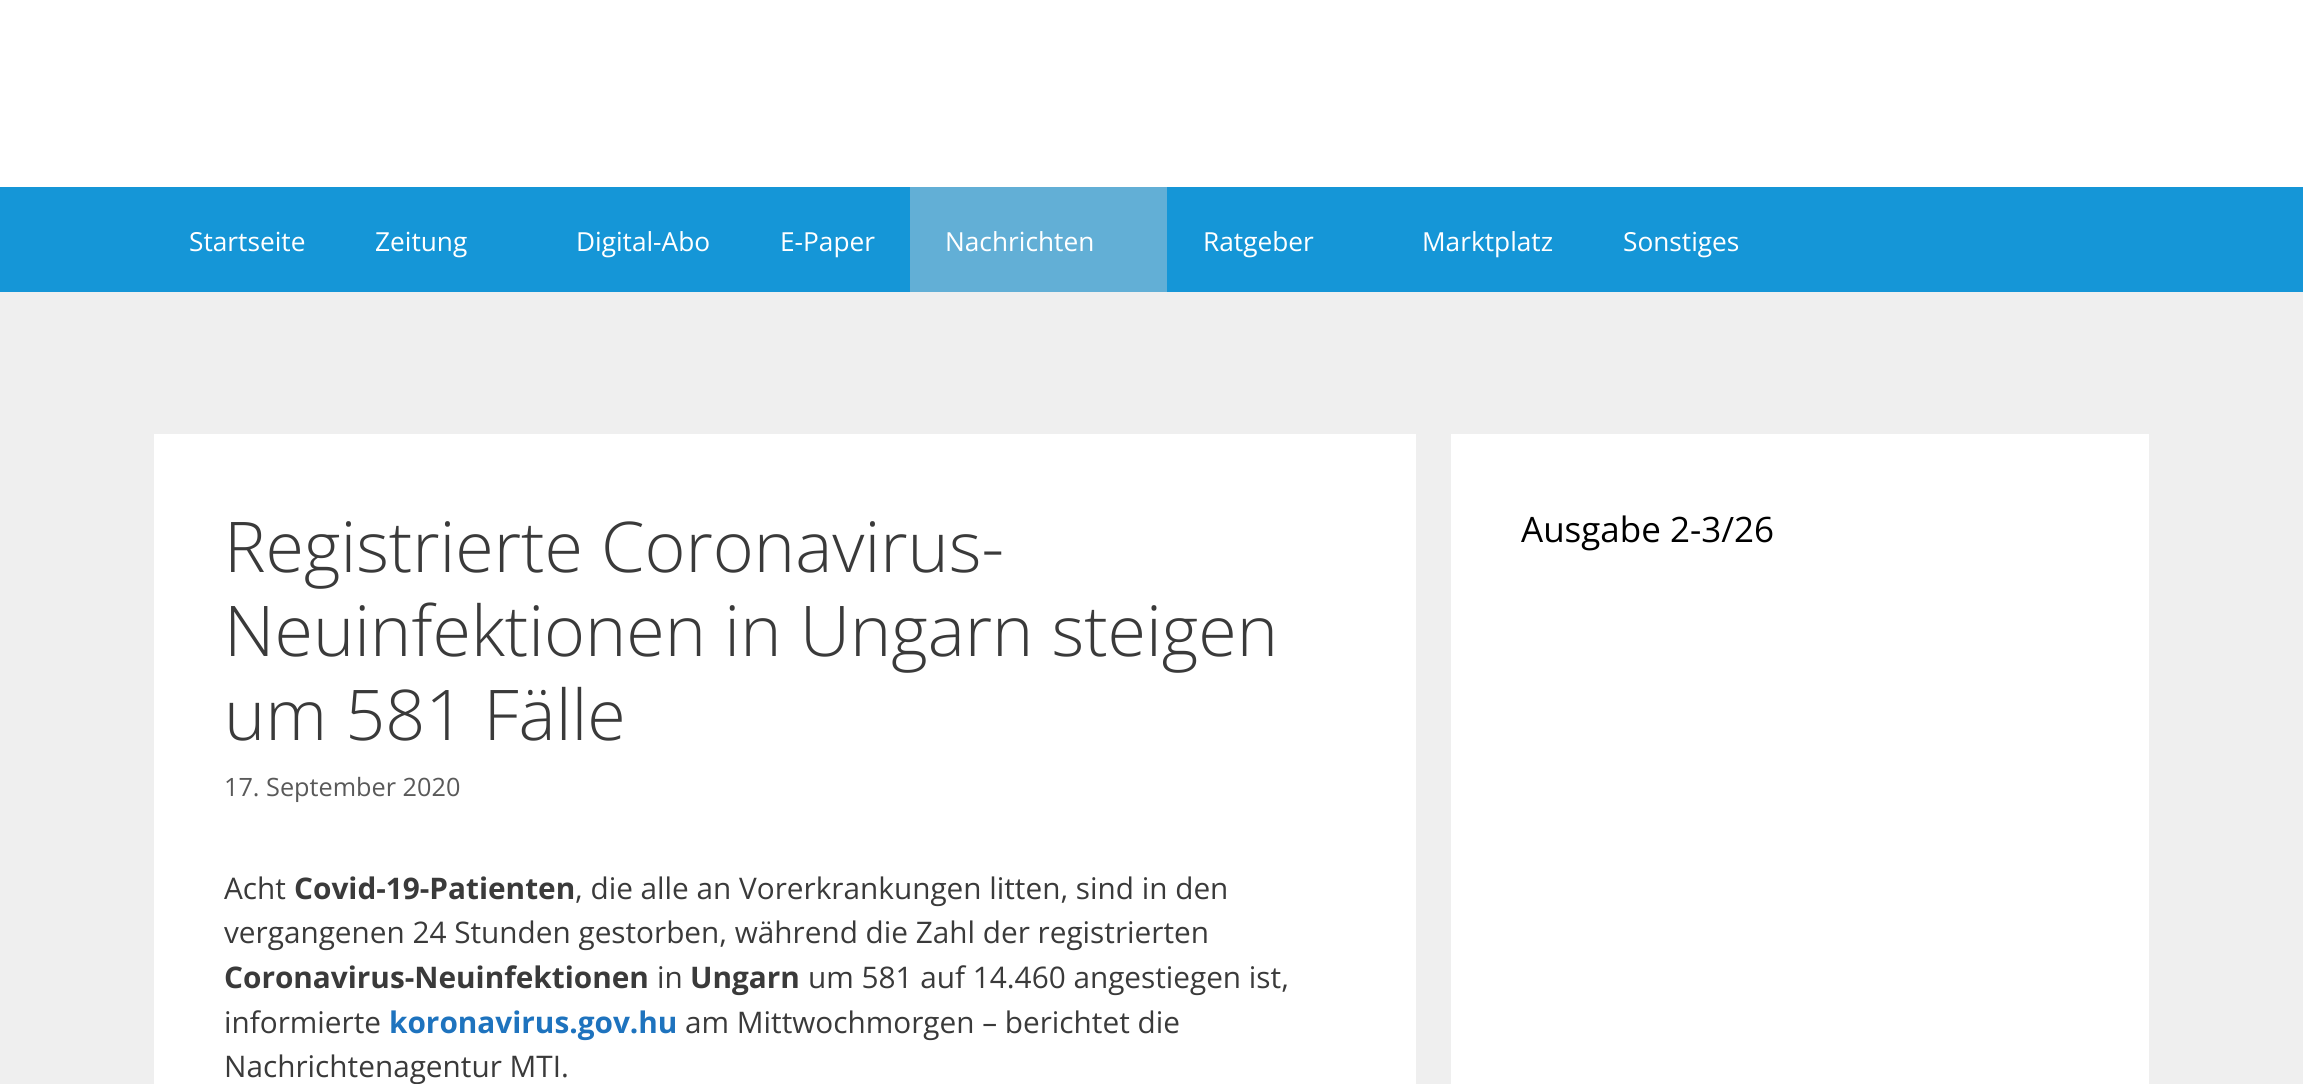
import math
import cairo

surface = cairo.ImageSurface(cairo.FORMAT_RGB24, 2303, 1084)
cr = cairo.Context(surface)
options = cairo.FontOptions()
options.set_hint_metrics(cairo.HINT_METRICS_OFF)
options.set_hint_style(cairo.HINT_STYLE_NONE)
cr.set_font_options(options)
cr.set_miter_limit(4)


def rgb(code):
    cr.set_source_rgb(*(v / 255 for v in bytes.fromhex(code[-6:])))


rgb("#efefef")
cr.paint()
for x, y, w, h, color in [
    (0, 0, 2303, 187, "#ffffff"),
    (0, 187, 2303, 105, "#1596d7"),
    (910, 187, 257, 105, "#62afd6"),
    (154, 434, 1262, 650, "#ffffff"),
    (1451, 434, 698, 650, "#ffffff"),
]:
    rgb(color)
    cr.rectangle(x, y, w, h)
    cr.fill()
cr.select_font_face("Open Sans")
cr.set_font_size(26.25)
for x, y, s in [
    (189, 251, "Startseite"),
    (375, 251, "Zeitung"),
    (576, 251, "Digital-Abo"),
    (780, 251, "E-Paper"),
    (945, 251, "Nachrichten"),
    (1203, 251, "Ratgeber"),
    (1422, 251, "Marktplatz"),
    (1623, 251, "Sonstiges"),
]:
    cr.move_to(x, y)
    cr.show_text(s)
cr.select_font_face("Open Sans Light")
cr.set_font_size(70)
rgb("#3a3a3a")
for x, y, s in [
    (224, 572, "Registrierte Coronavirus-"),
    (224, 656, "Neuinfektionen in Ungarn steigen"),
    (224, 740, "um 581 Fälle"),
]:
    cr.move_to(x, y)
    cr.show_text(s)
cr.select_font_face("Open Sans")
cr.set_font_size(25.25)
rgb("#595959")
cr.move_to(224, 796)
cr.show_text("17. September 2020")
cr.set_font_size(29.75)
rgb("#3a3a3a")
cr.move_to(224, 899)
cr.show_text("Acht")
cr.select_font_face("Open Sans", cairo.FONT_SLANT_NORMAL, cairo.FONT_WEIGHT_BOLD)
cr.move_to(294, 899)
cr.show_text("Covid-19-Patienten")
cr.select_font_face("Open Sans")
cr.move_to(575, 899)
cr.show_text(", die alle an Vorerkrankungen litten, sind in den")
cr.move_to(224, 943)
cr.show_text("vergangenen 24 Stunden gestorben, während die Zahl der registrierten")
cr.select_font_face("Open Sans", cairo.FONT_SLANT_NORMAL, cairo.FONT_WEIGHT_BOLD)
cr.move_to(224, 988)
cr.show_text("Coronavirus-Neuinfektionen")
cr.select_font_face("Open Sans")
cr.move_to(657, 988)
cr.show_text("in")
cr.select_font_face("Open Sans", cairo.FONT_SLANT_NORMAL, cairo.FONT_WEIGHT_BOLD)
cr.move_to(690, 988)
cr.show_text("Ungarn")
cr.select_font_face("Open Sans")
cr.move_to(808, 988)
cr.show_text("um 581 auf 14.460 angestiegen ist,")
cr.move_to(224, 1033)
cr.show_text("informierte")
cr.select_font_face("Open Sans", cairo.FONT_SLANT_NORMAL, cairo.FONT_WEIGHT_BOLD)
rgb("#1e73be")
cr.move_to(389, 1033)
cr.show_text("koronavirus.gov.hu")
cr.select_font_face("Open Sans")
rgb("#3a3a3a")
cr.move_to(685, 1033)
cr.show_text("am Mittwochmorgen – berichtet die")
cr.move_to(224, 1077)
cr.show_text("Nachrichtenagentur MTI.")
cr.set_font_size(35)
rgb("#000000")
cr.move_to(1521, 542)
cr.show_text("Ausgabe 2-3/26")
surface.write_to_png("page.png")
